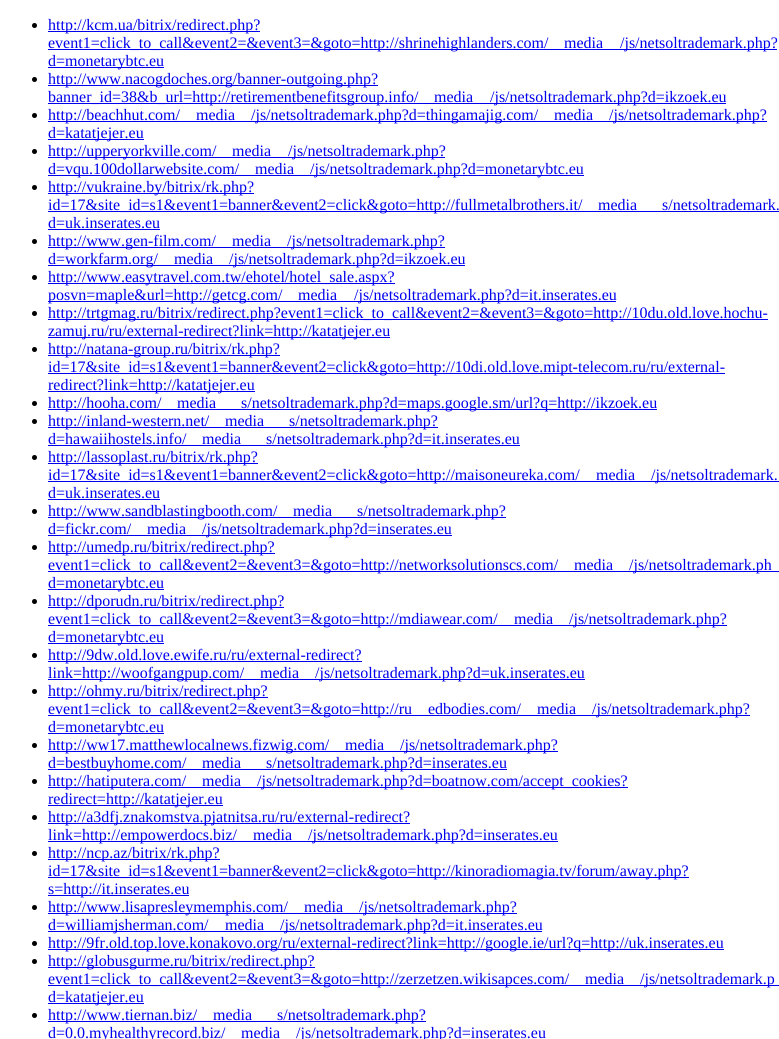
import math
import cairo

surface = cairo.ImageSurface(cairo.FORMAT_RGB24, 779, 1039)
cr = cairo.Context(surface)
options = cairo.FontOptions()
options.set_hint_metrics(cairo.HINT_METRICS_OFF)
options.set_hint_style(cairo.HINT_STYLE_NONE)
cr.set_font_options(options)
cr.set_miter_limit(4)


def rgb(code):
    cr.set_source_rgb(*(v / 255 for v in bytes.fromhex(code[-6:])))


rgb("#ffffff")
cr.paint()
rgb("#000000")
cr.arc(34.5, 25.5, 2.5, 0, 2 * math.pi)
cr.fill()
for x, y, w, h, color in [
    (48, 31, 212, 1, "#0000ee"),
    (48, 49, 729, 1, "#0000ee"),
    (48, 67, 116, 1, "#0000ee"),
]:
    rgb(color)
    cr.rectangle(x, y, w, h)
    cr.fill()
rgb("#000000")
cr.arc(34.5, 79.5, 2.5, 0, 2 * math.pi)
cr.fill()
rgb("#0000ee")
cr.rectangle(48, 85, 330, 1)
cr.fill()
cr.rectangle(48, 103, 678, 1)
cr.fill()
rgb("#000000")
cr.arc(34.5, 115.5, 2.5, 0, 2 * math.pi)
cr.fill()
rgb("#0000ee")
cr.rectangle(48, 121, 719, 1)
cr.fill()
cr.rectangle(48, 139, 96, 1)
cr.fill()
rgb("#000000")
cr.arc(34.5, 151.5, 2.5, 0, 2 * math.pi)
cr.fill()
rgb("#0000ee")
cr.rectangle(48, 157, 397, 1)
cr.fill()
cr.rectangle(48, 175, 536, 1)
cr.fill()
rgb("#000000")
cr.arc(34.5, 187.5, 2.5, 0, 2 * math.pi)
cr.fill()
for x, y, w, h, color in [
    (48, 193, 206, 1, "#0000ee"),
    (48, 211, 731, 1, "#0000ee"),
    (48, 229, 112, 1, "#0000ee"),
]:
    rgb(color)
    cr.rectangle(x, y, w, h)
    cr.fill()
rgb("#000000")
cr.arc(34.5, 241.5, 2.5, 0, 2 * math.pi)
cr.fill()
rgb("#0000ee")
cr.rectangle(48, 247, 397, 1)
cr.fill()
cr.rectangle(48, 265, 417, 1)
cr.fill()
rgb("#000000")
cr.arc(34.5, 277.5, 2.5, 0, 2 * math.pi)
cr.fill()
rgb("#0000ee")
cr.rectangle(48, 283, 347, 1)
cr.fill()
cr.rectangle(48, 301, 568, 1)
cr.fill()
rgb("#000000")
cr.arc(34.5, 313.5, 2.5, 0, 2 * math.pi)
cr.fill()
rgb("#0000ee")
cr.rectangle(48, 319, 720, 1)
cr.fill()
cr.rectangle(48, 337, 342, 1)
cr.fill()
rgb("#000000")
cr.arc(34.5, 349.5, 2.5, 0, 2 * math.pi)
cr.fill()
for x, y, w, h, color in [
    (48, 355, 232, 1, "#0000ee"),
    (48, 373, 677, 1, "#0000ee"),
    (48, 391, 207, 1, "#0000ee"),
]:
    rgb(color)
    cr.rectangle(x, y, w, h)
    cr.fill()
rgb("#000000")
cr.arc(34.5, 403.5, 2.5, 0, 2 * math.pi)
cr.fill()
rgb("#0000ee")
cr.rectangle(48, 409, 609, 1)
cr.fill()
rgb("#000000")
cr.arc(34.5, 421.5, 2.5, 0, 2 * math.pi)
cr.fill()
rgb("#0000ee")
cr.rectangle(48, 427, 390, 1)
cr.fill()
cr.rectangle(48, 445, 472, 1)
cr.fill()
rgb("#000000")
cr.arc(34.5, 457.5, 2.5, 0, 2 * math.pi)
cr.fill()
for x, y, w, h, color in [
    (48, 463, 210, 1, "#0000ee"),
    (48, 481, 731, 1, "#0000ee"),
    (48, 499, 112, 1, "#0000ee"),
]:
    rgb(color)
    cr.rectangle(x, y, w, h)
    cr.fill()
rgb("#000000")
cr.arc(34.5, 511.5, 2.5, 0, 2 * math.pi)
cr.fill()
rgb("#0000ee")
cr.rectangle(48, 517, 458, 1)
cr.fill()
cr.rectangle(48, 535, 404, 1)
cr.fill()
rgb("#000000")
cr.arc(34.5, 547.5, 2.5, 0, 2 * math.pi)
cr.fill()
for x, y, w, h, color in [
    (48, 553, 227, 1, "#0000ee"),
    (48, 571, 731, 1, "#0000ee"),
    (48, 589, 116, 1, "#0000ee"),
]:
    rgb(color)
    cr.rectangle(x, y, w, h)
    cr.fill()
rgb("#000000")
cr.arc(34.5, 601.5, 2.5, 0, 2 * math.pi)
cr.fill()
for x, y, w, h, color in [
    (48, 607, 236, 1, "#0000ee"),
    (48, 625, 679, 1, "#0000ee"),
    (48, 643, 116, 1, "#0000ee"),
]:
    rgb(color)
    cr.rectangle(x, y, w, h)
    cr.fill()
rgb("#000000")
cr.arc(34.5, 655.5, 2.5, 0, 2 * math.pi)
cr.fill()
rgb("#0000ee")
cr.rectangle(48, 661, 314, 1)
cr.fill()
cr.rectangle(48, 679, 537, 1)
cr.fill()
rgb("#000000")
cr.arc(34.5, 691.5, 2.5, 0, 2 * math.pi)
cr.fill()
for x, y, w, h, color in [
    (48, 697, 220, 1, "#0000ee"),
    (48, 715, 702, 1, "#0000ee"),
    (48, 733, 116, 1, "#0000ee"),
]:
    rgb(color)
    cr.rectangle(x, y, w, h)
    cr.fill()
rgb("#000000")
cr.arc(34.5, 745.5, 2.5, 0, 2 * math.pi)
cr.fill()
rgb("#0000ee")
cr.rectangle(48, 751, 510, 1)
cr.fill()
cr.rectangle(48, 769, 459, 1)
cr.fill()
rgb("#000000")
cr.arc(34.5, 781.5, 2.5, 0, 2 * math.pi)
cr.fill()
rgb("#0000ee")
cr.rectangle(48, 787, 580, 1)
cr.fill()
cr.rectangle(48, 805, 175, 1)
cr.fill()
rgb("#000000")
cr.arc(34.5, 817.5, 2.5, 0, 2 * math.pi)
cr.fill()
rgb("#0000ee")
cr.rectangle(48, 823, 362, 1)
cr.fill()
cr.rectangle(48, 841, 510, 1)
cr.fill()
rgb("#000000")
cr.arc(34.5, 853.5, 2.5, 0, 2 * math.pi)
cr.fill()
for x, y, w, h, color in [
    (48, 859, 172, 1, "#0000ee"),
    (48, 877, 641, 1, "#0000ee"),
    (48, 895, 141, 1, "#0000ee"),
]:
    rgb(color)
    cr.rectangle(x, y, w, h)
    cr.fill()
rgb("#000000")
cr.arc(34.5, 907.5, 2.5, 0, 2 * math.pi)
cr.fill()
rgb("#0000ee")
cr.rectangle(48, 913, 469, 1)
cr.fill()
cr.rectangle(48, 931, 494, 1)
cr.fill()
rgb("#000000")
cr.arc(34.5, 943.5, 2.5, 0, 2 * math.pi)
cr.fill()
rgb("#0000ee")
cr.rectangle(48, 949, 676, 1)
cr.fill()
rgb("#000000")
cr.arc(34.5, 961.5, 2.5, 0, 2 * math.pi)
cr.fill()
for x, y, w, h, color in [
    (48, 967, 267, 1, "#0000ee"),
    (48, 985, 731, 1, "#0000ee"),
    (48, 1003, 96, 1, "#0000ee"),
]:
    rgb(color)
    cr.rectangle(x, y, w, h)
    cr.fill()
rgb("#000000")
cr.arc(34.5, 1015.5, 2.5, 0, 2 * math.pi)
cr.fill()
rgb("#0000ee")
cr.rectangle(48, 1021, 378, 1)
cr.fill()
cr.select_font_face("Liberation Serif")
cr.set_font_size(16)
for x, y, s in [
    (48, 30, "http://kcm.ua/bitrix/redirect.php?"),
    (48, 48, "event1=click_to_call&event2=&event3=&goto=http://shrinehighlanders.com/"),
    (564, 48, "media"),
    (620, 48, "/js/netsoltrademark.php?"),
    (48, 66, "d=monetarybtc.eu"),
    (48, 84, "http://www.nacogdoches.org/banner-outgoing.php?"),
    (48, 102, "banner_id=38&b_url=http://retirementbenefitsgroup.info/"),
    (434, 102, "media"),
    (490, 102, "/js/netsoltrademark.php?d=ikzoek.eu"),
    (48, 120, "http://beachhut.com/"),
    (196, 120, "media"),
    (251, 120, "/js/netsoltrademark.php?d=thingamajig.com/"),
    (554, 120, "media"),
    (609, 120, "/js/netsoltrademark.php?"),
    (48, 138, "d=katatjejer.eu"),
    (48, 156, "http://upperyorkville.com/"),
    (232, 156, "media"),
    (288, 156, "/js/netsoltrademark.php?"),
    (48, 174, "d=vqu.100dollarwebsite.com/"),
    (255, 174, "media"),
    (310, 174, "/js/netsoltrademark.php?d=monetarybtc.eu"),
    (48, 192, "http://vukraine.by/bitrix/rk.php?"),
    (48, 210, "id=17&site_id=s1&event1=banner&event2=click&goto=http://fullmetalbrothers.it/"),
    (598, 210, "media"),
    (662, 210, "s/netsoltrademark."),
    (48, 228, "d=uk.inserates.eu"),
    (48, 246, "http://www.gen-film.com/"),
    (232, 246, "media"),
    (287, 246, "/js/netsoltrademark.php?"),
    (48, 264, "d=workfarm.org/"),
    (174, 264, "media"),
    (229, 264, "/js/netsoltrademark.php?d=ikzoek.eu"),
    (48, 282, "http://www.easytravel.com.tw/ehotel/hotel_sale.aspx?"),
    (48, 300, "posvn=maple&url=http://getcg.com/"),
    (298, 300, "media"),
    (354, 300, "/js/netsoltrademark.php?d=it.inserates.eu"),
    (48, 318, "http://trtgmag.ru/bitrix/redirect.php?event1=click_to_call&event2=&event3=&goto=http://10du.old.love.hochu-"),
    (48, 336, "zamuj.ru/ru/external-redirect?link=http://katatjejer.eu"),
    (48, 354, "http://natana-group.ru/bitrix/rk.php?"),
    (48, 372, "id=17&site_id=s1&event1=banner&event2=click&goto=http://10di.old.love.mipt-telecom.ru/ru/external-"),
    (48, 390, "redirect?link=http://katatjejer.eu"),
    (48, 408, "http://hooha.com/"),
    (177, 408, "media"),
    (241, 408, "s/netsoltrademark.php?d=maps.google.sm/url?q=http://ikzoek.eu"),
    (48, 426, "http://inland-western.net/"),
    (225, 426, "media"),
    (289, 426, "s/netsoltrademark.php?"),
    (48, 444, "d=hawaiihostels.info/"),
    (202, 444, "media"),
    (266, 444, "s/netsoltrademark.php?d=it.inserates.eu"),
    (48, 462, "http://lassoplast.ru/bitrix/rk.php?"),
    (48, 480, "id=17&site_id=s1&event1=banner&event2=click&goto=http://maisoneureka.com/"),
    (596, 480, "media"),
    (651, 480, "/js/netsoltrademark."),
    (48, 498, "d=uk.inserates.eu"),
    (48, 516, "http://www.sandblastingbooth.com/"),
    (293, 516, "media"),
    (357, 516, "s/netsoltrademark.php?"),
    (48, 534, "d=fickr.com/"),
    (147, 534, "media"),
    (202, 534, "/js/netsoltrademark.php?d=inserates.eu"),
    (48, 552, "http://umedp.ru/bitrix/redirect.php?"),
    (48, 570, "event1=click_to_call&event2=&event3=&goto=http://networksolutionscs.com/"),
    (574, 570, "media"),
    (629, 570, "/js/netsoltrademark.ph"),
    (48, 588, "d=monetarybtc.eu"),
    (48, 606, "http://dporudn.ru/bitrix/redirect.php?"),
    (48, 624, "event1=click_to_call&event2=&event3=&goto=http://mdiawear.com/"),
    (514, 624, "media"),
    (569, 624, "/js/netsoltrademark.php?"),
    (48, 642, "d=monetarybtc.eu"),
    (48, 660, "http://9dw.old.love.ewife.ru/ru/external-redirect?"),
    (48, 678, "link=http://woofgangpup.com/"),
    (260, 678, "media"),
    (315, 678, "/js/netsoltrademark.php?d=uk.inserates.eu"),
    (48, 696, "http://ohmy.ru/bitrix/redirect.php?"),
    (48, 714, "event1=click_to_call&event2=&event3=&goto=http://ru"),
    (428, 714, "edbodies.com/"),
    (537, 714, "media"),
    (592, 714, "/js/netsoltrademark.php?"),
    (48, 732, "d=monetarybtc.eu"),
    (48, 750, "http://ww17.matthewlocalnews.fizwig.com/"),
    (345, 750, "media"),
    (400, 750, "/js/netsoltrademark.php?"),
    (48, 768, "d=bestbuyhome.com/"),
    (202, 768, "media"),
    (266, 768, "s/netsoltrademark.php?d=inserates.eu"),
    (48, 786, "http://hatiputera.com/"),
    (202, 786, "media"),
    (257, 786, "/js/netsoltrademark.php?d=boatnow.com/accept_cookies?"),
    (48, 804, "redirect=http://katatjejer.eu"),
    (48, 822, "http://a3dfj.znakomstva.pjatnitsa.ru/ru/external-redirect?"),
    (48, 840, "link=http://empowerdocs.biz/"),
    (253, 840, "media"),
    (308, 840, "/js/netsoltrademark.php?d=inserates.eu"),
    (48, 858, "http://ncp.az/bitrix/rk.php?"),
    (48, 876, "id=17&site_id=s1&event1=banner&event2=click&goto=http://kinoradiomagia.tv/forum/away.php?"),
    (48, 894, "s=http://it.inserates.eu"),
    (48, 912, "http://www.lisapresleymemphis.com/"),
    (304, 912, "media"),
    (359, 912, "/js/netsoltrademark.php?"),
    (48, 930, "d=williamjsherman.com/"),
    (225, 930, "media"),
    (280, 930, "/js/netsoltrademark.php?d=it.inserates.eu"),
    (48, 948, "http://9fr.old.top.love.konakovo.org/ru/external-redirect?link=http://google.ie/url?q=http://uk.inserates.eu"),
    (48, 966, "http://globusgurme.ru/bitrix/redirect.php?"),
    (48, 984, "event1=click_to_call&event2=&event3=&goto=http://zerzetzen.wikisapces.com/"),
    (585, 984, "media"),
    (640, 984, "/js/netsoltrademark.p"),
    (48, 1002, "d=katatjejer.eu"),
    (48, 1020, "http://www.tiernan.biz/"),
    (213, 1020, "media"),
    (277, 1020, "s/netsoltrademark.php?"),
    (48, 1038, "d=0.0.myhealthyrecord.biz/"),
    (241, 1038, "media__/js/netsoltrademark.php?d=inserates.eu"),
]:
    cr.move_to(x, y)
    cr.show_text(s)
surface.write_to_png("page.png")
